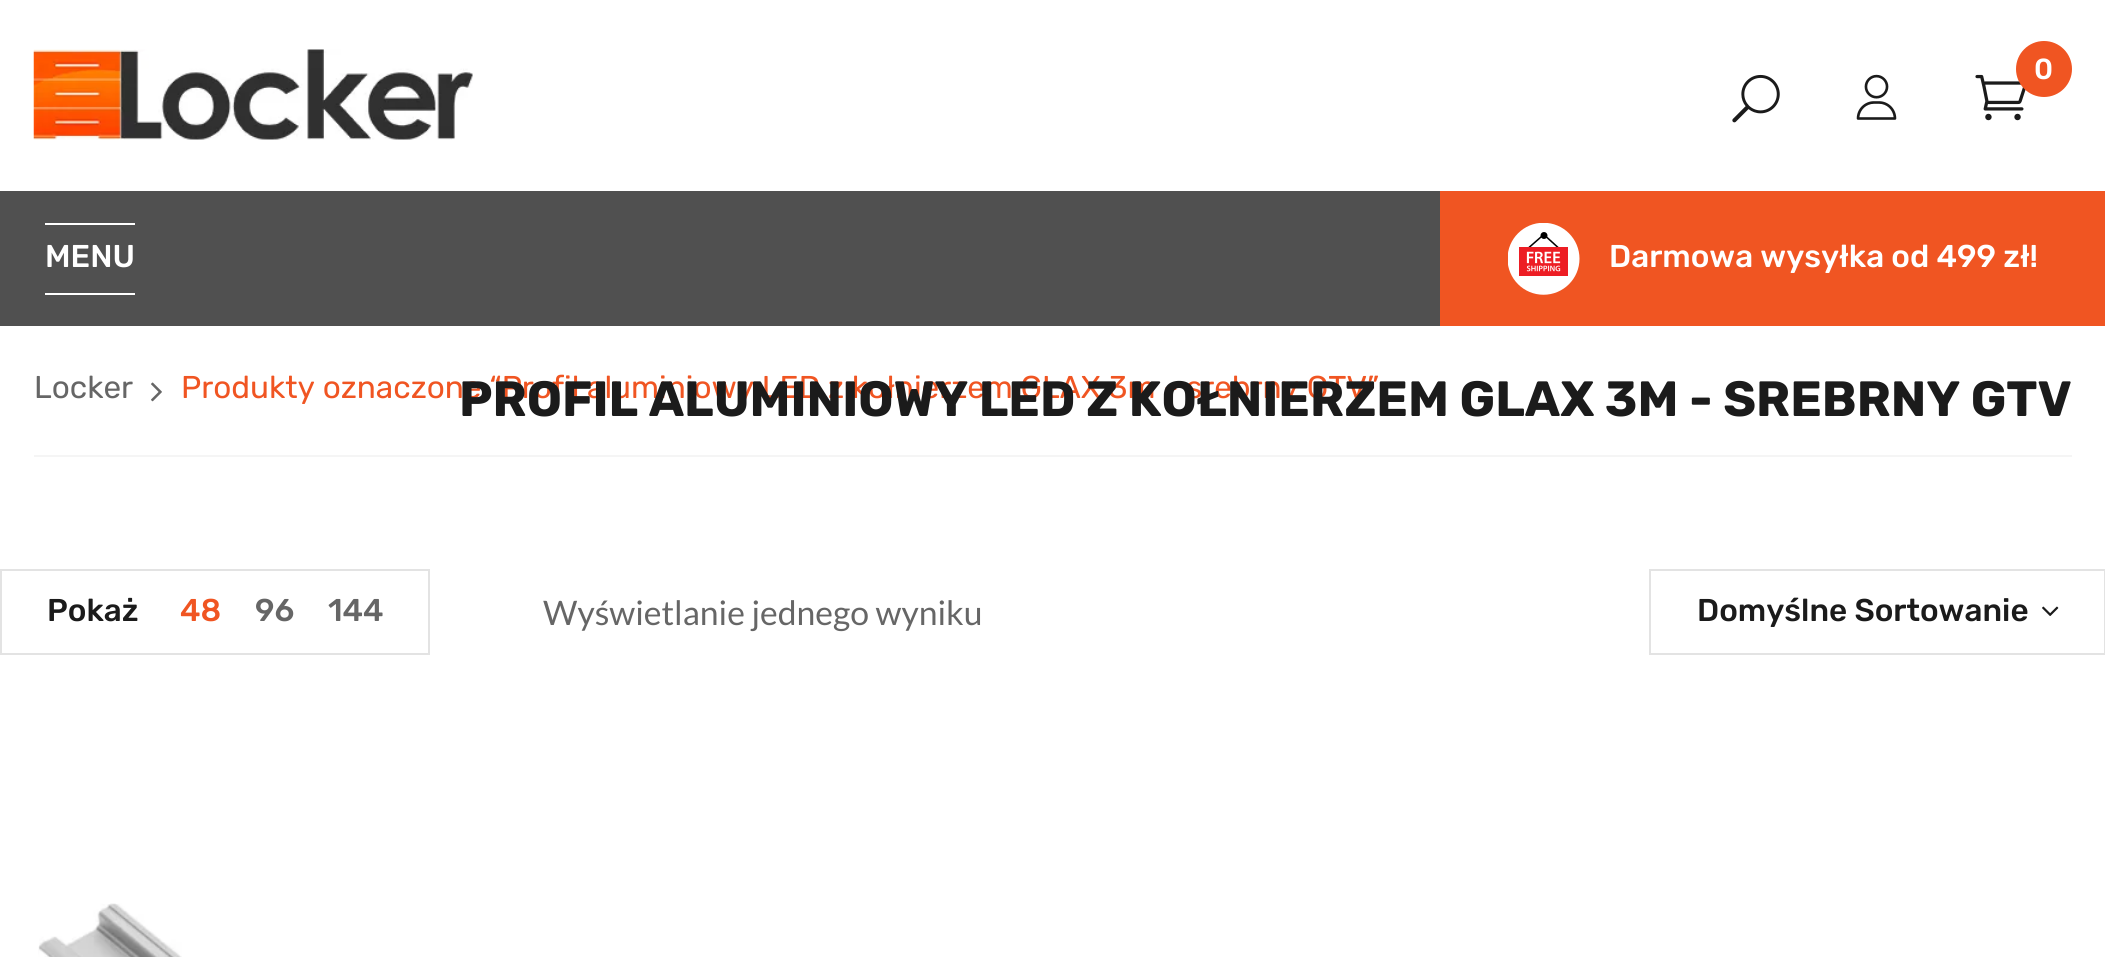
import math
import cairo

surface = cairo.ImageSurface(cairo.FORMAT_RGB24, 2105, 957)
cr = cairo.Context(surface)
options = cairo.FontOptions()
options.set_hint_metrics(cairo.HINT_METRICS_OFF)
options.set_hint_style(cairo.HINT_STYLE_NONE)
cr.set_font_options(options)
cr.set_miter_limit(4)


def rgb(code):
    cr.set_source_rgb(*(v / 255 for v in bytes.fromhex(code[-6:])))


def image(path, x, y, w, h):
    cr.save()
    cr.set_source_surface(cairo.ImageSurface.create_from_png(path), x, y)
    cr.rectangle(x, y, w, h)
    cr.fill()
    cr.restore()


rgb("#ffffff")
cr.paint()
image("img/1.png", 33, 49, 440, 91)
image("img/2.png", 1975, 74, 51, 47)
rgb("#f05522")
cr.arc(2044, 69, 28, 0, 2 * math.pi)
cr.fill()
image("img/3.png", 1732, 74, 48, 49)
image("img/4.png", 1856, 74, 41, 46)
for x, y, w, h, color in [
    (0, 191, 1440, 135, "#505050"),
    (45, 223, 90, 2, "#ffffff"),
    (45, 293, 90, 2, "#ffffff"),
    (1440, 191, 665, 135, "#f05522"),
]:
    rgb(color)
    cr.rectangle(x, y, w, h)
    cr.fill()
image("img/5.png", 1508, 223, 72, 72)
rgb("#f5f5f5")
cr.rectangle(34, 455, 2038, 2)
cr.fill()
image("img/6.png", 151, 382, 11, 20)
cr.rectangle(1, 570, 428, 84)
rgb("#e3e3e3")
cr.stroke()
cr.rectangle(1650, 570, 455, 84)
cr.stroke()
image("img/7.png", 2042, 606, 17, 10)
image("img/8.png", 38, 903, 144, 54)
cr.select_font_face("Rubik Medium")
cr.set_font_size(29)
rgb("#ffffff")
cr.move_to(2034, 79)
cr.show_text("0")
cr.set_font_size(31.5)
cr.move_to(45, 267)
cr.show_text("MENU")
cr.move_to(1609, 267)
cr.show_text("Darmowa wysyłka od 499 zł!")
cr.select_font_face("Rubik")
rgb("#666666")
cr.move_to(34, 398)
cr.show_text("Locker")
rgb("#f05522")
cr.move_to(181, 398)
cr.show_text("Produkty oznaczone “Profil aluminiowy LED z kołnierzem GLAX 3m - srebrny GTV”")
cr.select_font_face("Rubik", cairo.FONT_SLANT_NORMAL, cairo.FONT_WEIGHT_BOLD)
cr.set_font_size(49.5)
rgb("#1b1b1b")
cr.move_to(459, 416)
cr.show_text("PROFIL ALUMINIOWY LED Z KOŁNIERZEM GLAX 3M - SREBRNY GTV")
cr.select_font_face("Rubik Medium")
cr.set_font_size(31.5)
cr.move_to(47, 621)
cr.show_text("Pokaż")
rgb("#f05522")
cr.move_to(180, 621)
cr.show_text("48")
rgb("#666666")
cr.move_to(255, 621)
cr.show_text("96")
cr.move_to(328, 621)
cr.show_text("144")
cr.select_font_face("Lato")
cr.set_font_size(33.75)
cr.move_to(543, 625)
cr.show_text("Wyświetlanie jednego wyniku")
cr.select_font_face("Rubik Medium")
cr.set_font_size(31.5)
rgb("#1b1b1b")
cr.move_to(1697, 621)
cr.show_text("Domyślne Sortowanie")
surface.write_to_png("page.png")
